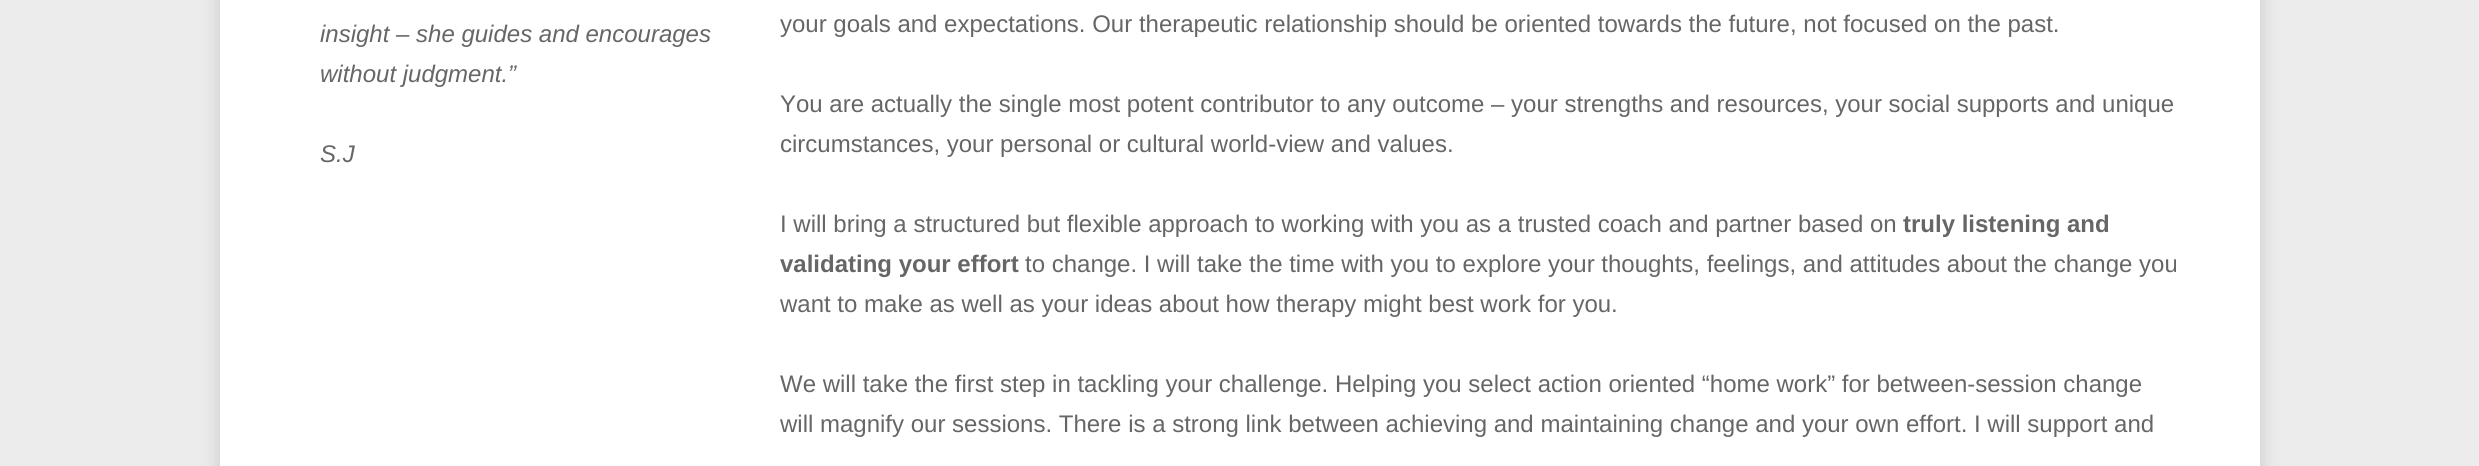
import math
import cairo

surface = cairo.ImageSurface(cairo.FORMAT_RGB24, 2479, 466)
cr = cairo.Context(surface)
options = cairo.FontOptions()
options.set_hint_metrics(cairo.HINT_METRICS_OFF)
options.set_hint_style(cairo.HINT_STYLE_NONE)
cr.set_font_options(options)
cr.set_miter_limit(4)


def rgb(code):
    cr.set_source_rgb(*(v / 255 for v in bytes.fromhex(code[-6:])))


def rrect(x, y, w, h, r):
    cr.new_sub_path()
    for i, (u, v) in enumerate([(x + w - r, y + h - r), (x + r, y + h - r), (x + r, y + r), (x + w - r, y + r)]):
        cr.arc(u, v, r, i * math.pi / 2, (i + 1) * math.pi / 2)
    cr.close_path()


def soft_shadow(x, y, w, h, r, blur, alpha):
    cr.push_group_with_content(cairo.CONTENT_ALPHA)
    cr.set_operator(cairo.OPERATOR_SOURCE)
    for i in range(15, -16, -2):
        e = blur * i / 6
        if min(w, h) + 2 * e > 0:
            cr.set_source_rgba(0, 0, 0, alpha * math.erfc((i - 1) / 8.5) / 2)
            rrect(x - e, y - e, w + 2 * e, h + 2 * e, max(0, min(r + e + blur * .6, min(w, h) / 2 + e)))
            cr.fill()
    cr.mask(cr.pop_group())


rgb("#ececec")
cr.paint()
rgb("#c7c7c7")
soft_shadow(220, -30, 2040, 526, 0, 10, 1)
rgb("#ffffff")
cr.rectangle(220, 0, 2040, 466)
cr.fill()
cr.select_font_face("Liberation Sans", cairo.FONT_SLANT_ITALIC)
cr.set_font_size(24)
rgb("#666666")
for x, y, s in [
    (320, 42, "insight – she guides and encourages"),
    (320, 82, "without judgment.”"),
    (320, 162, "S.J"),
]:
    cr.move_to(x, y)
    cr.show_text(s)
cr.select_font_face("Liberation Sans")
for x, y, s in [
    (780, 32, "your goals and expectations. Our therapeutic relationship should be oriented towards the future, not focused on the past."),
    (780, 112, "You are actually the single most potent contributor to any outcome – your strengths and resources, your social supports and unique"),
    (780, 152, "circumstances, your personal or cultural world-view and values."),
    (780, 232, "I will bring a structured but flexible approach to working with you as a trusted coach and partner based on"),
]:
    cr.move_to(x, y)
    cr.show_text(s)
cr.select_font_face("Liberation Sans", cairo.FONT_SLANT_NORMAL, cairo.FONT_WEIGHT_BOLD)
cr.move_to(1903, 232)
cr.show_text("truly listening and")
cr.move_to(780, 272)
cr.show_text("validating your effort")
cr.select_font_face("Liberation Sans")
for x, y, s in [
    (1025, 272, "to change. I will take the time with you to explore your thoughts, feelings, and attitudes about the change you"),
    (780, 312, "want to make as well as your ideas about how therapy might best work for you."),
    (780, 392, "We will take the first step in tackling your challenge. Helping you select action oriented “home work” for between-session change"),
    (780, 432, "will magnify our sessions. There is a strong link between achieving and maintaining change and your own effort. I will support and"),
]:
    cr.move_to(x, y)
    cr.show_text(s)
surface.write_to_png("page.png")
